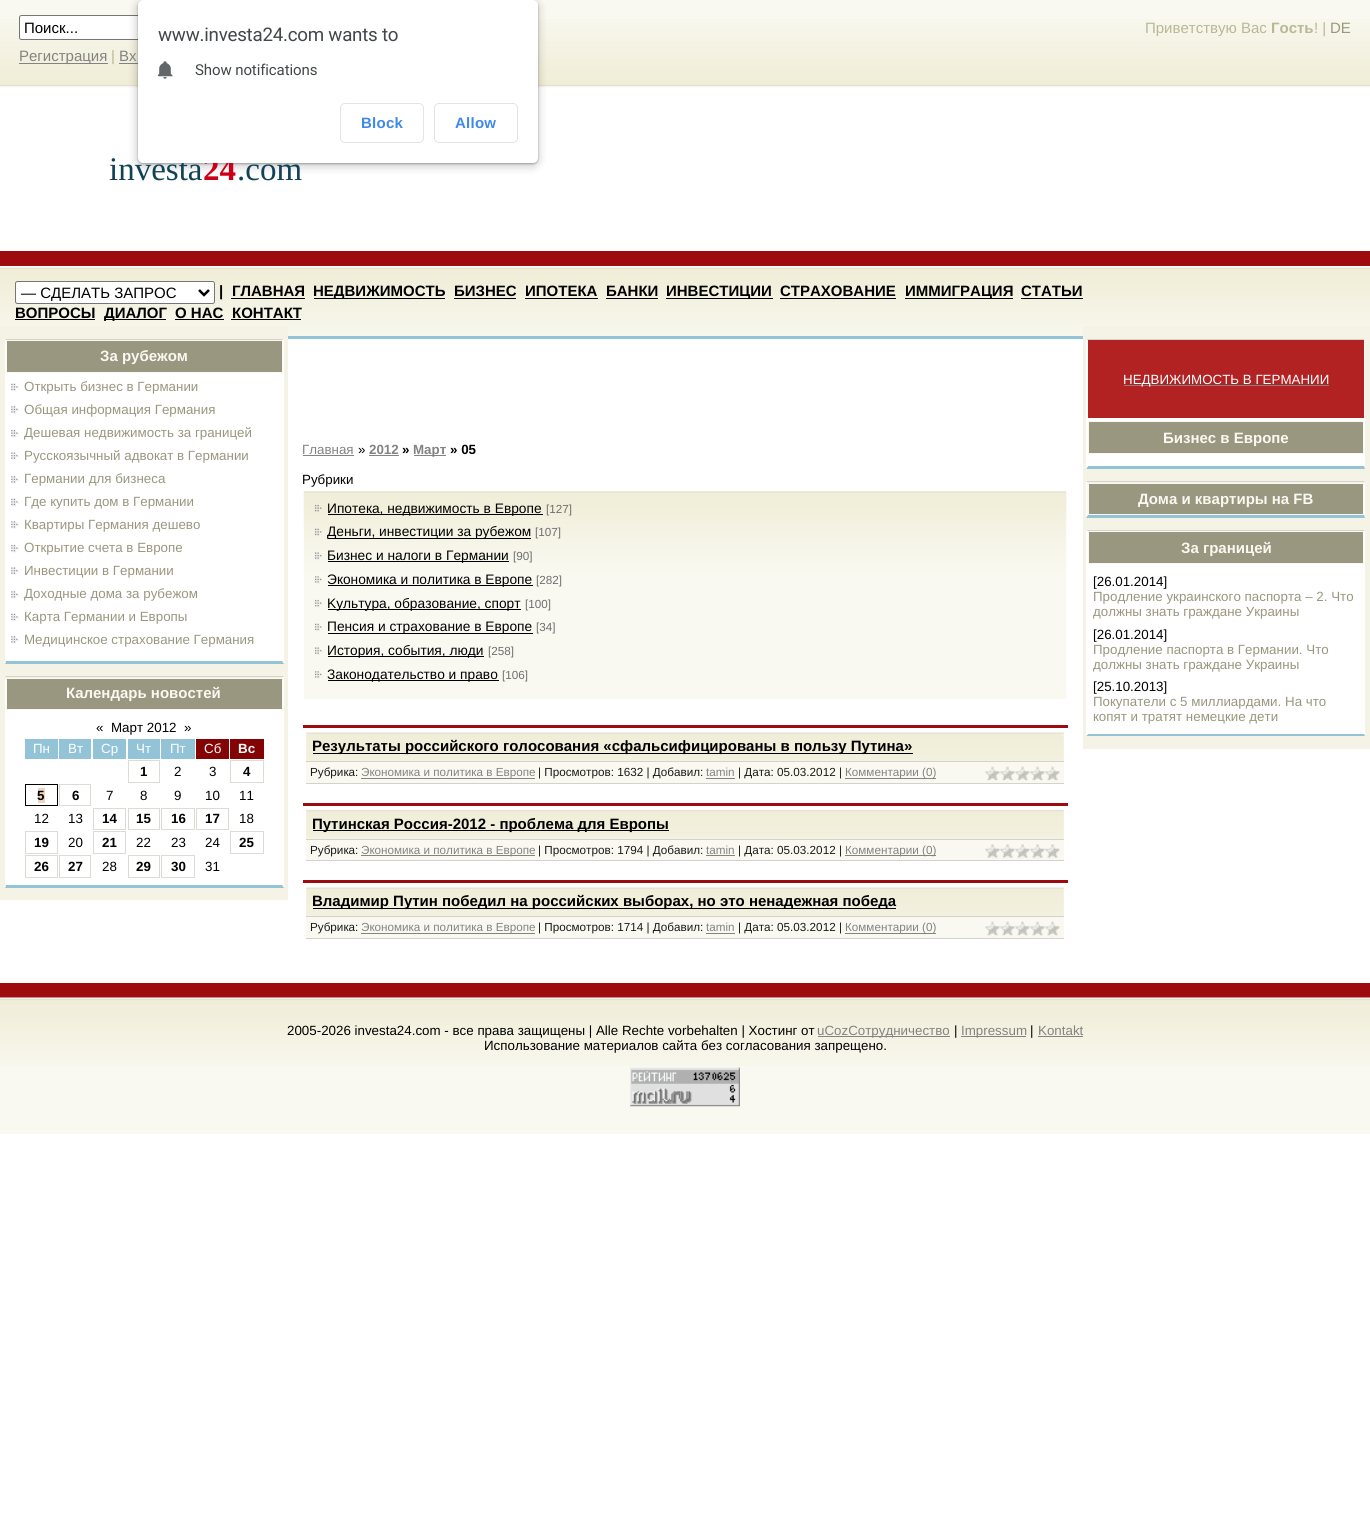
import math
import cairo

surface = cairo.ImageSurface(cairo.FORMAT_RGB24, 1370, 1514)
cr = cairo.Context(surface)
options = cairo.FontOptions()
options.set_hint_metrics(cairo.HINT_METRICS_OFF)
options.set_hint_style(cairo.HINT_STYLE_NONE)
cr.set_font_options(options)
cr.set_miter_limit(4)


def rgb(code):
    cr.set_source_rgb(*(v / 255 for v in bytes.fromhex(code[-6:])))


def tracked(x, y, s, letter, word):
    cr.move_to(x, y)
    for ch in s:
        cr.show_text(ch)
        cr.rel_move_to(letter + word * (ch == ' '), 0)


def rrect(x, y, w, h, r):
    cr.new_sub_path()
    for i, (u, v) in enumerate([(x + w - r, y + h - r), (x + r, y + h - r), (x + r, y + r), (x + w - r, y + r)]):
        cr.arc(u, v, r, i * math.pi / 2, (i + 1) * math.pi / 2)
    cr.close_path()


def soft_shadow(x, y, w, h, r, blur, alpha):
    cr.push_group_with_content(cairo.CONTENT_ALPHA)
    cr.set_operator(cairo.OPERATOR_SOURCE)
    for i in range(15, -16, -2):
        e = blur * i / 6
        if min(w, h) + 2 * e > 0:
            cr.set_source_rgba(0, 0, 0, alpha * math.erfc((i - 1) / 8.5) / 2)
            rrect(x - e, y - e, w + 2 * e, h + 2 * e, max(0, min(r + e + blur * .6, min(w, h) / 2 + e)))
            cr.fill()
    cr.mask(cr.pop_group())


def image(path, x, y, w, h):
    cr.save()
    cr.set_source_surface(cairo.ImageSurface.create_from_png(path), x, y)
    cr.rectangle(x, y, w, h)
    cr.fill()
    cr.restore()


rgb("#ffffff")
cr.paint()
rgb("#faf9f1")
cr.rectangle(0, 0, 1370, 88)
cr.fill()
image("img/1.png", 0, 19, 1370, 69)
rgb("#ffffff")
rrect(19.5, 15.5, 155, 24, 2)
cr.fill_preserve()
rgb("#767676")
cr.set_line_width(1)
cr.stroke()
rgb("#838383")
cr.rectangle(19, 63, 89, 1)
cr.fill()
cr.rectangle(119, 63, 19, 1)
cr.fill()
rgb("#000000")
soft_shadow(135, 0, 405, 168, 8, 4, 0.15)
soft_shadow(138, 1, 400, 163, 5, 1, 0.3)
rgb("#9e0b0f")
cr.rectangle(0, 251, 1370, 15)
cr.fill()
image("img/3.png", 0, 267, 1370, 69)
rgb("#93c3d7")
cr.rectangle(288, 336, 795, 3)
cr.fill()
rgb("#ffffff")
rrect(15.5, 281.5, 199, 22, 2)
cr.fill_preserve()
rgb("#767676")
cr.stroke()
cr.new_path()
cr.move_to(199, 290)
cr.line_to(204, 295)
cr.line_to(209, 290)
rgb("#000000")
cr.set_line_width(2.5)
cr.stroke()
for x, y, w, h, color in [
    (231, 298, 74, 1, "#000000"),
    (314, 298, 131, 1, "#000000"),
    (454, 298, 62, 1, "#000000"),
    (525, 298, 73, 1, "#000000"),
    (606, 298, 52, 1, "#000000"),
    (666, 298, 107, 1, "#000000"),
    (780, 298, 116, 1, "#000000"),
    (905, 298, 108, 1, "#000000"),
    (1021, 298, 62, 1, "#000000"),
    (15, 319, 80, 1, "#000000"),
    (104, 319, 62, 1, "#000000"),
    (175, 319, 49, 1, "#000000"),
    (231, 319, 70, 1, "#000000"),
    (0, 326, 288, 574, "#f5f3e5"),
    (6, 373, 276, 288, "#ffffff"),
    (5, 339, 279, 1, "#d3d2cb"),
]:
    rgb(color)
    cr.rectangle(x, y, w, h)
    cr.fill()
rgb("#ffffff")
cr.new_path()
cr.move_to(284, 339)
cr.line_to(284, 664)
cr.line_to(282, 661)
cr.line_to(282, 340)
cr.close_path()
cr.fill()
rgb("#93c3d7")
cr.new_path()
cr.move_to(284, 664)
cr.line_to(5, 664)
cr.line_to(6, 661)
cr.line_to(282, 661)
cr.close_path()
cr.fill()
rgb("#ffffff")
cr.new_path()
cr.move_to(5, 664)
cr.line_to(5, 339)
cr.line_to(6, 340)
cr.line_to(6, 661)
cr.close_path()
cr.fill()
rgb("#99977f")
cr.rectangle(6.5, 340.5, 276, 32)
cr.fill_preserve()
rgb("#faf9f1")
cr.set_line_width(1)
cr.stroke()
image("img/4.png", 11, 383, 8, 9)
image("img/5.png", 11, 406, 8, 8)
image("img/6.png", 11, 429, 8, 9)
image("img/7.png", 11, 452, 8, 8)
image("img/5.png", 11, 476, 8, 8)
image("img/4.png", 11, 498, 8, 9)
image("img/5.png", 11, 521, 8, 8)
image("img/6.png", 11, 544, 8, 9)
image("img/7.png", 11, 567, 8, 8)
image("img/5.png", 11, 591, 8, 8)
image("img/4.png", 11, 613, 8, 9)
image("img/5.png", 11, 636, 8, 8)
rgb("#ffffff")
cr.rectangle(6, 710, 276, 175)
cr.fill()
rgb("#d3d2cb")
cr.rectangle(5, 676, 279, 1)
cr.fill()
rgb("#ffffff")
cr.new_path()
cr.move_to(284, 676)
cr.line_to(284, 888)
cr.line_to(282, 885)
cr.line_to(282, 678)
cr.close_path()
cr.fill()
rgb("#93c3d7")
cr.new_path()
cr.move_to(284, 888)
cr.line_to(5, 888)
cr.line_to(6, 885)
cr.line_to(282, 885)
cr.close_path()
cr.fill()
rgb("#ffffff")
cr.new_path()
cr.move_to(5, 888)
cr.line_to(5, 676)
cr.line_to(6, 678)
cr.line_to(6, 885)
cr.close_path()
cr.fill()
rgb("#99977f")
cr.rectangle(6.5, 678.5, 276, 31)
cr.fill_preserve()
rgb("#faf9f1")
cr.stroke()
for x, y, w, h, color in [
    (25, 739, 33, 20, "#93c3d7"),
    (59, 739, 32, 20, "#93c3d7"),
    (93, 739, 33, 20, "#93c3d7"),
    (128, 739, 32, 20, "#93c3d7"),
    (161, 739, 34, 20, "#93c3d7"),
    (196, 739, 33, 20, "#840304"),
    (230, 739, 34, 20, "#840304"),
]:
    rgb(color)
    cr.rectangle(x, y, w, h)
    cr.fill()
cr.rectangle(128.5, 760.5, 31, 22)
rgb("#dcdbd4")
cr.stroke()
cr.rectangle(230.5, 760.5, 33, 22)
cr.stroke()
cr.rectangle(25.5, 784.5, 32, 21)
rgb("#000000")
cr.stroke()
rgb("#f0d5c0")
cr.rectangle(38, 788, 7, 15)
cr.fill()
cr.rectangle(59.5, 784.5, 31, 21)
rgb("#dcdbd4")
cr.stroke()
cr.rectangle(93.5, 808.5, 32, 21)
cr.stroke()
cr.rectangle(128.5, 808.5, 31, 21)
cr.stroke()
cr.rectangle(161.5, 808.5, 33, 21)
cr.stroke()
cr.rectangle(196.5, 808.5, 32, 21)
cr.stroke()
cr.rectangle(25.5, 831.5, 32, 22)
cr.stroke()
cr.rectangle(93.5, 831.5, 32, 22)
cr.stroke()
cr.rectangle(230.5, 831.5, 33, 22)
cr.stroke()
cr.rectangle(25.5, 855.5, 32, 22)
cr.stroke()
cr.rectangle(59.5, 855.5, 31, 22)
cr.stroke()
cr.rectangle(128.5, 855.5, 31, 22)
cr.stroke()
cr.rectangle(161.5, 855.5, 33, 22)
cr.stroke()
for x, y, w, h, color in [
    (303, 455, 51, 1, "#838383"),
    (369, 455, 30, 1, "#838383"),
    (414, 455, 32, 1, "#838383"),
    (304, 577, 762, 122, "#faf9f1"),
]:
    rgb(color)
    cr.rectangle(x, y, w, h)
    cr.fill()
image("img/8.png", 303, 490, 764, 87)
image("img/9.png", 314, 504, 9, 9)
rgb("#000000")
cr.rectangle(328, 514, 215, 1)
cr.fill()
image("img/10.png", 314, 528, 8, 8)
cr.rectangle(328, 538, 203, 1)
cr.fill()
image("img/11.png", 314, 552, 9, 8)
cr.rectangle(328, 561, 181, 1)
cr.fill()
image("img/12.png", 314, 576, 9, 8)
cr.rectangle(328, 585, 205, 1)
cr.fill()
image("img/13.png", 314, 599, 9, 9)
cr.rectangle(328, 609, 193, 1)
cr.fill()
image("img/14.png", 314, 623, 9, 9)
cr.rectangle(328, 633, 205, 1)
cr.fill()
image("img/15.png", 314, 647, 9, 8)
cr.rectangle(328, 656, 156, 1)
cr.fill()
image("img/12.png", 314, 671, 9, 8)
for x, y, w, h, color in [
    (328, 680, 171, 1, "#000000"),
    (303, 725, 765, 3, "#9e0b0f"),
    (306, 731, 758, 30, "#faf9f1"),
]:
    rgb(color)
    cr.rectangle(x, y, w, h)
    cr.fill()
image("img/16.png", 306, 731, 758, 30)
for x, y, w, h, color in [
    (313, 753, 600, 1, "#000000"),
    (306, 762, 758, 21, "#faf9f1"),
    (306, 761, 758, 1, "#d3d2cb"),
    (306, 783, 758, 1, "#d3d2cb"),
    (361, 778, 174, 1, "#838383"),
    (706, 778, 29, 1, "#838383"),
    (845, 778, 91, 1, "#838383"),
]:
    rgb(color)
    cr.rectangle(x, y, w, h)
    cr.fill()
image("img/17.png", 985, 766, 75, 16)
rgb("#9e0b0f")
cr.rectangle(303, 803, 765, 3)
cr.fill()
rgb("#faf9f1")
cr.rectangle(306, 809, 758, 30)
cr.fill()
image("img/18.png", 306, 809, 758, 30)
for x, y, w, h, color in [
    (313, 830, 356, 1, "#000000"),
    (306, 840, 758, 20, "#faf9f1"),
    (306, 839, 758, 1, "#d3d2cb"),
    (306, 860, 758, 1, "#d3d2cb"),
    (361, 855, 174, 1, "#838383"),
    (706, 855, 29, 1, "#838383"),
    (845, 855, 91, 1, "#838383"),
]:
    rgb(color)
    cr.rectangle(x, y, w, h)
    cr.fill()
image("img/19.png", 985, 844, 75, 15)
rgb("#9e0b0f")
cr.rectangle(303, 880, 765, 3)
cr.fill()
rgb("#faf9f1")
cr.rectangle(306, 886, 758, 30)
cr.fill()
image("img/20.png", 306, 886, 758, 30)
for x, y, w, h, color in [
    (313, 908, 583, 1, "#000000"),
    (306, 917, 758, 21, "#faf9f1"),
    (306, 916, 758, 1, "#d3d2cb"),
    (306, 938, 758, 1, "#d3d2cb"),
    (361, 933, 174, 1, "#838383"),
    (706, 933, 29, 1, "#838383"),
    (845, 933, 91, 1, "#838383"),
]:
    rgb(color)
    cr.rectangle(x, y, w, h)
    cr.fill()
image("img/21.png", 985, 921, 75, 16)
for x, y, w, h, color in [
    (1083, 326, 287, 423, "#f5f3e5"),
    (1088, 418, 276, 48, "#ffffff"),
    (1086, 339, 279, 1, "#d3d2cb"),
]:
    rgb(color)
    cr.rectangle(x, y, w, h)
    cr.fill()
rgb("#ffffff")
cr.new_path()
cr.move_to(1365, 339)
cr.line_to(1365, 469)
cr.line_to(1364, 466)
cr.line_to(1364, 340)
cr.close_path()
cr.fill()
rgb("#93c3d7")
cr.new_path()
cr.move_to(1365, 469)
cr.line_to(1086, 469)
cr.line_to(1088, 466)
cr.line_to(1364, 466)
cr.close_path()
cr.fill()
rgb("#ffffff")
cr.new_path()
cr.move_to(1086, 469)
cr.line_to(1086, 339)
cr.line_to(1088, 340)
cr.line_to(1088, 466)
cr.close_path()
cr.fill()
rgb("#b22222")
cr.rectangle(1088, 340, 276, 78)
cr.fill()
rgb("#838383")
cr.rectangle(1124, 385, 205, 1)
cr.fill()
rgb("#99977f")
cr.rectangle(1088.5, 421.5, 275, 32)
cr.fill_preserve()
rgb("#faf9f1")
cr.stroke()
rgb("#d3d2cb")
cr.rectangle(1086, 481, 279, 1)
cr.fill()
rgb("#ffffff")
cr.new_path()
cr.move_to(1365, 481)
cr.line_to(1365, 517.5)
cr.line_to(1364, 515)
cr.line_to(1364, 482.5)
cr.close_path()
cr.fill()
rgb("#93c3d7")
cr.new_path()
cr.move_to(1365, 518)
cr.line_to(1086, 518)
cr.line_to(1088, 515)
cr.line_to(1364, 515)
cr.close_path()
cr.fill()
rgb("#ffffff")
cr.new_path()
cr.move_to(1086, 517.5)
cr.line_to(1086, 481)
cr.line_to(1087.5, 482.5)
cr.line_to(1087.5, 515)
cr.close_path()
cr.fill()
rgb("#99977f")
cr.rectangle(1088.5, 483.5, 275, 31)
cr.fill_preserve()
rgb("#faf9f1")
cr.stroke()
rgb("#ffffff")
cr.rectangle(1088, 564, 276, 170)
cr.fill()
rgb("#d3d2cb")
cr.rectangle(1086, 530, 279, 1)
cr.fill()
rgb("#ffffff")
cr.new_path()
cr.move_to(1365, 530)
cr.line_to(1365, 736)
cr.line_to(1364, 734)
cr.line_to(1364, 531)
cr.close_path()
cr.fill()
rgb("#93c3d7")
cr.new_path()
cr.move_to(1365, 736)
cr.line_to(1086, 736)
cr.line_to(1088, 734)
cr.line_to(1364, 734)
cr.close_path()
cr.fill()
rgb("#ffffff")
cr.new_path()
cr.move_to(1086, 736)
cr.line_to(1086, 530)
cr.line_to(1088, 531)
cr.line_to(1088, 734)
cr.close_path()
cr.fill()
rgb("#99977f")
cr.rectangle(1088.5, 531.5, 275, 32)
cr.fill_preserve()
rgb("#faf9f1")
cr.stroke()
rgb("#9e0b0f")
cr.rectangle(0, 983, 1370, 15)
cr.fill()
rgb("#faf9f1")
cr.rectangle(0, 1066, 1370, 68)
cr.fill()
image("img/22.png", 0, 997, 1370, 69)
for x, y, w, h, color in [
    (818, 1036, 132, 1, "#838383"),
    (961, 1036, 65, 1, "#838383"),
    (1038, 1036, 45, 1, "#838383"),
]:
    rgb(color)
    cr.rectangle(x, y, w, h)
    cr.fill()
image("img/23.png", 630, 1067, 110, 40)
cr.select_font_face("Liberation Sans")
cr.set_font_size(15)
rgb("#000000")
cr.move_to(24, 33)
cr.show_text("Поиск...")
rgb("#bbb696")
cr.move_to(1145, 33)
cr.show_text("Приветствую Вас")
cr.select_font_face("Liberation Sans", cairo.FONT_SLANT_NORMAL, cairo.FONT_WEIGHT_BOLD)
cr.move_to(1271, 33)
cr.show_text("Гость")
cr.select_font_face("Liberation Sans")
cr.move_to(1314, 33)
cr.show_text("! |")
rgb("#99977f")
cr.move_to(1330, 33)
cr.show_text("DE")
rgb("#838383")
cr.move_to(19, 61)
cr.show_text("Регистрация")
rgb("#bbb696")
cr.move_to(111, 61)
cr.show_text("|")
rgb("#838383")
cr.move_to(119, 61)
cr.show_text("Вх")
cr.select_font_face("Liberation Serif")
cr.set_font_size(33)
rgb("#124256")
cr.move_to(109, 180)
cr.show_text("investa")
cr.select_font_face("Liberation Serif", cairo.FONT_SLANT_NORMAL, cairo.FONT_WEIGHT_BOLD)
rgb("#cc0017")
cr.move_to(203, 180)
cr.show_text("24")
rgb("#ffffff")
rrect(138, 0, 400, 163, 5)
cr.fill()
cr.select_font_face("Roboto")
cr.set_font_size(15)
rgb("#434749")
tracked(195, 75, "Show notifications", -0.1, 0)
cr.set_font_size(18.75)
tracked(158, 41, "www.investa24.com wants to", -0.25, 0)
image("img/2.png", 158, 61, 15, 18)
rrect(434.5, 103.5, 83, 39, 4.5)
rgb("#e4e4e4")
cr.stroke()
cr.select_font_face("Liberation Sans", cairo.FONT_SLANT_NORMAL, cairo.FONT_WEIGHT_BOLD)
cr.set_font_size(15)
rgb("#4089e8")
tracked(455, 128, "Allow", 0.25, 0)
rrect(340.5, 103.5, 83, 39, 4.5)
rgb("#e4e4e4")
cr.stroke()
rgb("#4089e8")
tracked(361, 128, "Block", 0.25, 0)
cr.select_font_face("Liberation Serif")
cr.set_font_size(33)
rgb("#124256")
cr.move_to(237, 180)
cr.show_text(".com")
cr.select_font_face("Liberation Sans")
cr.set_font_size(15)
rgb("#000000")
cr.move_to(21, 298)
cr.show_text("— СДЕЛАТЬ ЗАПРОС")
cr.select_font_face("Liberation Sans", cairo.FONT_SLANT_NORMAL, cairo.FONT_WEIGHT_BOLD)
for x, y, s in [
    (219, 296, "|"),
    (232, 296, "ГЛАВНАЯ"),
    (313, 296, "НЕДВИЖИМОСТЬ"),
    (454, 296, "БИЗНЕС"),
    (525, 296, "ИПОТЕКА"),
    (606, 296, "БАНКИ"),
    (666, 296, "ИНВЕСТИЦИИ"),
    (780, 296, "СТРАХОВАНИЕ"),
    (905, 296, "ИММИГРАЦИЯ"),
    (1021, 296, "СТАТЬИ"),
    (15, 318, "ВОПРОСЫ"),
    (104, 318, "ДИАЛОГ"),
    (175, 318, "О НАС"),
    (232, 318, "КОНТАКТ"),
]:
    cr.move_to(x, y)
    cr.show_text(s)
rgb("#faf9f1")
cr.move_to(100, 361)
cr.show_text("За рубежом")
cr.select_font_face("Liberation Sans")
cr.set_font_size(13.35)
rgb("#99977f")
for x, y, s in [
    (24, 391, "Открыть бизнес в Германии"),
    (24, 414, "Общая информация Германия"),
    (24, 437, "Дешевая недвижимость за границей"),
    (24, 460, "Русскоязычный адвокат в Германии"),
    (24, 483, "Германии для бизнеса"),
    (24, 506, "Где купить дом в Германии"),
    (24, 529, "Квартиры Германия дешево"),
    (24, 552, "Открытие счета в Европе"),
    (24, 575, "Инвестиции в Германии"),
    (24, 598, "Доходные дома за рубежом"),
    (24, 621, "Карта Германии и Европы"),
    (24, 644, "Медицинское страхование Германия"),
]:
    cr.move_to(x, y)
    cr.show_text(s)
cr.select_font_face("Liberation Sans", cairo.FONT_SLANT_NORMAL, cairo.FONT_WEIGHT_BOLD)
cr.set_font_size(15)
rgb("#faf9f1")
cr.move_to(66, 698)
cr.show_text("Календарь новостей")
cr.select_font_face("Liberation Sans")
cr.set_font_size(13.35)
rgb("#000000")
for x, y, s in [
    (96, 732, "«"),
    (111, 732, "Март 2012"),
    (184, 732, "»"),
]:
    cr.move_to(x, y)
    cr.show_text(s)
rgb("#ffffff")
for x, y, s in [
    (33, 753, "Пн"),
    (68, 753, "Вт"),
    (101, 753, "Ср"),
    (136, 753, "Чт"),
    (170, 753, "Пт"),
    (204, 753, "Сб"),
]:
    cr.move_to(x, y)
    cr.show_text(s)
cr.select_font_face("Liberation Sans", cairo.FONT_SLANT_NORMAL, cairo.FONT_WEIGHT_BOLD)
cr.move_to(238, 753)
cr.show_text("Вс")
rgb("#000000")
cr.move_to(140, 776)
cr.show_text("1")
cr.select_font_face("Liberation Sans")
cr.move_to(174, 776)
cr.show_text("2")
cr.move_to(209, 776)
cr.show_text("3")
cr.select_font_face("Liberation Sans", cairo.FONT_SLANT_NORMAL, cairo.FONT_WEIGHT_BOLD)
for x, y, s in [
    (243, 776, "4"),
    (37, 800, "5"),
    (72, 800, "6"),
]:
    cr.move_to(x, y)
    cr.show_text(s)
cr.select_font_face("Liberation Sans")
for x, y, s in [
    (106, 800, "7"),
    (140, 800, "8"),
    (174, 800, "9"),
    (205, 800, "10"),
    (239, 800, "11"),
    (34, 823, "12"),
    (68, 823, "13"),
]:
    cr.move_to(x, y)
    cr.show_text(s)
cr.select_font_face("Liberation Sans", cairo.FONT_SLANT_NORMAL, cairo.FONT_WEIGHT_BOLD)
for x, y, s in [
    (102, 823, "14"),
    (136, 823, "15"),
    (171, 823, "16"),
    (205, 823, "17"),
]:
    cr.move_to(x, y)
    cr.show_text(s)
cr.select_font_face("Liberation Sans")
cr.move_to(239, 823)
cr.show_text("18")
cr.select_font_face("Liberation Sans", cairo.FONT_SLANT_NORMAL, cairo.FONT_WEIGHT_BOLD)
cr.move_to(34, 847)
cr.show_text("19")
cr.select_font_face("Liberation Sans")
cr.move_to(68, 847)
cr.show_text("20")
cr.select_font_face("Liberation Sans", cairo.FONT_SLANT_NORMAL, cairo.FONT_WEIGHT_BOLD)
cr.move_to(102, 847)
cr.show_text("21")
cr.select_font_face("Liberation Sans")
for x, y, s in [
    (136, 847, "22"),
    (171, 847, "23"),
    (205, 847, "24"),
]:
    cr.move_to(x, y)
    cr.show_text(s)
cr.select_font_face("Liberation Sans", cairo.FONT_SLANT_NORMAL, cairo.FONT_WEIGHT_BOLD)
for x, y, s in [
    (239, 847, "25"),
    (34, 871, "26"),
    (68, 871, "27"),
]:
    cr.move_to(x, y)
    cr.show_text(s)
cr.select_font_face("Liberation Sans")
cr.move_to(102, 871)
cr.show_text("28")
cr.select_font_face("Liberation Sans", cairo.FONT_SLANT_NORMAL, cairo.FONT_WEIGHT_BOLD)
cr.move_to(136, 871)
cr.show_text("29")
cr.move_to(171, 871)
cr.show_text("30")
cr.select_font_face("Liberation Sans")
cr.move_to(205, 871)
cr.show_text("31")
rgb("#838383")
cr.move_to(302, 454)
cr.show_text("Главная")
rgb("#000000")
cr.move_to(358, 454)
cr.show_text("»")
cr.select_font_face("Liberation Sans", cairo.FONT_SLANT_NORMAL, cairo.FONT_WEIGHT_BOLD)
rgb("#838383")
cr.move_to(369, 454)
cr.show_text("2012")
rgb("#000000")
cr.move_to(402, 454)
cr.show_text("»")
rgb("#838383")
cr.move_to(413, 454)
cr.show_text("Март")
rgb("#000000")
cr.move_to(450, 454)
cr.show_text("» 05")
cr.select_font_face("Liberation Sans")
cr.move_to(302, 484)
cr.show_text("Рубрики")
cr.set_font_size(13.75)
cr.move_to(327, 513)
cr.show_text("Ипотека, недвижимость в Европе")
cr.set_font_size(11.7)
rgb("#6e6e6e")
cr.move_to(546, 513)
cr.show_text("[127]")
cr.set_font_size(13.75)
rgb("#000000")
cr.move_to(327, 536)
cr.show_text("Деньги, инвестиции за рубежом")
cr.set_font_size(11.7)
rgb("#6e6e6e")
cr.move_to(535, 536)
cr.show_text("[107]")
cr.set_font_size(13.75)
rgb("#000000")
cr.move_to(327, 560)
cr.show_text("Бизнес и налоги в Германии")
cr.set_font_size(11.7)
rgb("#6e6e6e")
cr.move_to(513, 560)
cr.show_text("[90]")
cr.set_font_size(13.75)
rgb("#000000")
cr.move_to(327, 584)
cr.show_text("Экономика и политика в Европе")
cr.set_font_size(11.7)
rgb("#6e6e6e")
cr.move_to(536, 584)
cr.show_text("[282]")
cr.set_font_size(13.75)
rgb("#000000")
cr.move_to(327, 608)
cr.show_text("Kультура, образование, спорт")
cr.set_font_size(11.7)
rgb("#6e6e6e")
cr.move_to(525, 608)
cr.show_text("[100]")
cr.set_font_size(13.75)
rgb("#000000")
cr.move_to(327, 631)
cr.show_text("Пенсия и страхование в Европе")
cr.set_font_size(11.7)
rgb("#6e6e6e")
cr.move_to(536, 631)
cr.show_text("[34]")
cr.set_font_size(13.75)
rgb("#000000")
cr.move_to(327, 655)
cr.show_text("История, события, люди")
cr.set_font_size(11.7)
rgb("#6e6e6e")
cr.move_to(488, 655)
cr.show_text("[258]")
cr.set_font_size(13.75)
rgb("#000000")
cr.move_to(327, 679)
cr.show_text("Законодательство и право")
cr.set_font_size(11.7)
rgb("#6e6e6e")
cr.move_to(502, 679)
cr.show_text("[106]")
cr.select_font_face("Liberation Sans", cairo.FONT_SLANT_NORMAL, cairo.FONT_WEIGHT_BOLD)
cr.set_font_size(15)
rgb("#000000")
cr.move_to(312, 751)
cr.show_text("Результаты российского голосования «сфальсифицированы в пользу Путина»")
cr.select_font_face("Liberation Sans")
cr.set_font_size(11.7)
rgb("#1a1a1a")
cr.move_to(310, 776)
cr.show_text("Рубрика:")
rgb("#838383")
cr.move_to(361, 776)
cr.show_text("Экономика и политика в Европе")
rgb("#1a1a1a")
cr.move_to(538, 776)
cr.show_text("| Просмотров: 1632 | Добавил:")
rgb("#838383")
cr.move_to(706, 776)
cr.show_text("tamin")
rgb("#1a1a1a")
cr.move_to(738, 776)
cr.show_text("| Дата: 05.03.2012 |")
rgb("#838383")
cr.move_to(845, 776)
cr.show_text("Комментарии (0)")
cr.select_font_face("Liberation Sans", cairo.FONT_SLANT_NORMAL, cairo.FONT_WEIGHT_BOLD)
cr.set_font_size(15)
rgb("#000000")
cr.move_to(312, 829)
cr.show_text("Путинская Россия-2012 - проблема для Европы")
cr.select_font_face("Liberation Sans")
cr.set_font_size(11.7)
rgb("#1a1a1a")
cr.move_to(310, 854)
cr.show_text("Рубрика:")
rgb("#838383")
cr.move_to(361, 854)
cr.show_text("Экономика и политика в Европе")
rgb("#1a1a1a")
cr.move_to(538, 854)
cr.show_text("| Просмотров: 1794 | Добавил:")
rgb("#838383")
cr.move_to(706, 854)
cr.show_text("tamin")
rgb("#1a1a1a")
cr.move_to(738, 854)
cr.show_text("| Дата: 05.03.2012 |")
rgb("#838383")
cr.move_to(845, 854)
cr.show_text("Комментарии (0)")
cr.select_font_face("Liberation Sans", cairo.FONT_SLANT_NORMAL, cairo.FONT_WEIGHT_BOLD)
cr.set_font_size(15)
rgb("#000000")
cr.move_to(312, 906)
cr.show_text("Владимир Путин победил на российских выборах, но это ненадежная победа")
cr.select_font_face("Liberation Sans")
cr.set_font_size(11.7)
rgb("#1a1a1a")
cr.move_to(310, 931)
cr.show_text("Рубрика:")
rgb("#838383")
cr.move_to(361, 931)
cr.show_text("Экономика и политика в Европе")
rgb("#1a1a1a")
cr.move_to(538, 931)
cr.show_text("| Просмотров: 1714 | Добавил:")
rgb("#838383")
cr.move_to(706, 931)
cr.show_text("tamin")
rgb("#1a1a1a")
cr.move_to(738, 931)
cr.show_text("| Дата: 05.03.2012 |")
rgb("#838383")
cr.move_to(845, 931)
cr.show_text("Комментарии (0)")
cr.set_font_size(13.35)
rgb("#ffffff")
cr.move_to(1123, 384)
cr.show_text("НЕДВИЖИМОСТЬ В ГЕРМАНИИ")
cr.select_font_face("Liberation Sans", cairo.FONT_SLANT_NORMAL, cairo.FONT_WEIGHT_BOLD)
cr.set_font_size(15)
rgb("#faf9f1")
for x, y, s in [
    (1163, 443, "Бизнес в Европе"),
    (1138, 504, "Дома и квартиры на FB"),
    (1181, 553, "За границей"),
]:
    cr.move_to(x, y)
    cr.show_text(s)
cr.select_font_face("Liberation Sans")
cr.set_font_size(13.35)
rgb("#000000")
cr.move_to(1093, 586)
cr.show_text("[26.01.2014]")
rgb("#99977f")
cr.move_to(1093, 601)
cr.show_text("Продление украинского паспорта – 2. Что")
cr.move_to(1093, 616)
cr.show_text("должны знать граждане Украины")
rgb("#000000")
cr.move_to(1093, 639)
cr.show_text("[26.01.2014]")
rgb("#99977f")
cr.move_to(1093, 654)
cr.show_text("Продление паспорта в Германии. Что")
cr.move_to(1093, 669)
cr.show_text("должны знать граждане Украины")
rgb("#000000")
cr.move_to(1093, 691)
cr.show_text("[25.10.2013]")
rgb("#99977f")
cr.move_to(1093, 706)
cr.show_text("Покупатели с 5 миллиардами. На что")
cr.move_to(1093, 721)
cr.show_text("копят и тратят немецкие дети")
rgb("#000000")
cr.move_to(287, 1035)
cr.show_text("2005-2026 investa24.com - все права защищены | Alle Rechte vorbehalten | Хостинг от")
rgb("#838383")
cr.move_to(817, 1035)
cr.show_text("uCozСотрудничество")
rgb("#000000")
cr.move_to(954, 1035)
cr.show_text("|")
rgb("#838383")
cr.move_to(961, 1035)
cr.show_text("Impressum")
rgb("#000000")
cr.move_to(1030, 1035)
cr.show_text("|")
rgb("#838383")
cr.move_to(1038, 1035)
cr.show_text("Kontakt")
rgb("#000000")
cr.move_to(484, 1050)
cr.show_text("Использование материалов сайта без согласования запрещено.")
surface.write_to_png("page.png")
